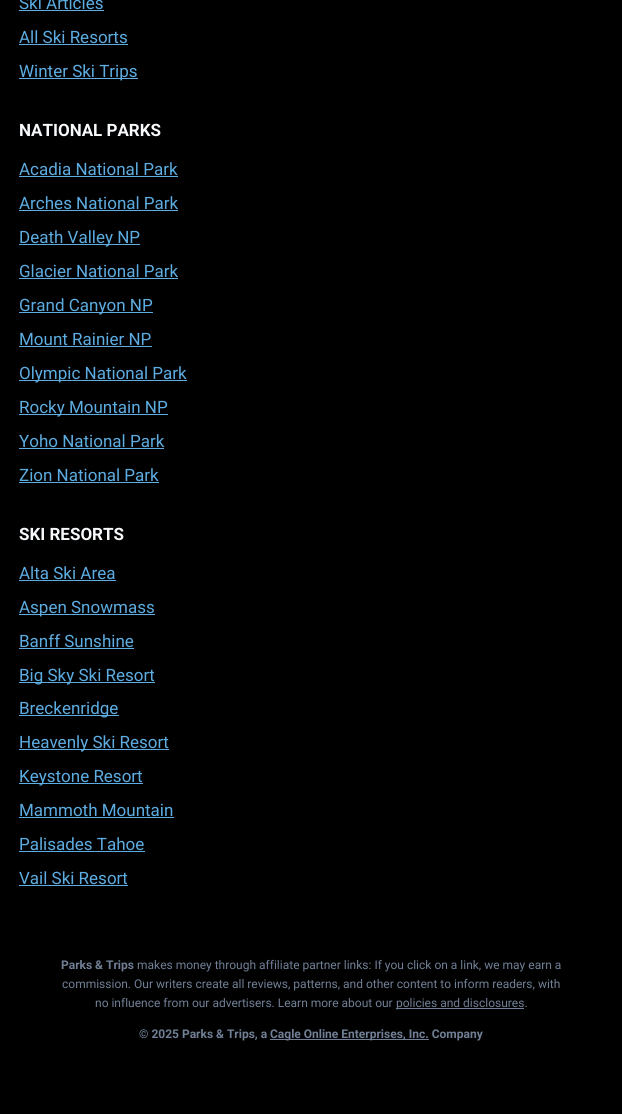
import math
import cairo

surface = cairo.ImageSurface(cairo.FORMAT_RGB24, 622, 1114)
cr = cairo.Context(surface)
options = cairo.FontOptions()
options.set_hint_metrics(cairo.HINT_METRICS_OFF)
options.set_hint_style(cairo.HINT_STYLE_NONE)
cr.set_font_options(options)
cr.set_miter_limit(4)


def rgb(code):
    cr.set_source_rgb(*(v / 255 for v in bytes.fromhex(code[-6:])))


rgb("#000000")
cr.paint()
for x, y, w, h, color in [
    (19, 10, 85, 1, "#5dade2"),
    (19, 44, 109, 1, "#5dade2"),
    (19, 78, 119, 1, "#5dade2"),
    (19, 176, 159, 1, "#5dade2"),
    (19, 210, 159, 1, "#5dade2"),
    (19, 244, 121, 1, "#5dade2"),
    (19, 278, 159, 1, "#5dade2"),
    (19, 312, 134, 1, "#5dade2"),
    (19, 346, 133, 1, "#5dade2"),
    (19, 380, 168, 1, "#5dade2"),
    (19, 414, 149, 1, "#5dade2"),
    (19, 448, 145, 1, "#5dade2"),
    (19, 482, 140, 1, "#5dade2"),
    (19, 580, 97, 1, "#5dade2"),
    (19, 614, 136, 1, "#5dade2"),
    (19, 648, 115, 1, "#5dade2"),
    (19, 682, 136, 1, "#5dade2"),
    (19, 715, 100, 1, "#5dade2"),
    (19, 749, 150, 1, "#5dade2"),
    (19, 783, 124, 1, "#5dade2"),
    (19, 817, 155, 1, "#5dade2"),
    (19, 851, 126, 1, "#5dade2"),
    (19, 885, 109, 1, "#5dade2"),
    (396, 1008, 128, 1, "#718096"),
    (270, 1039, 159, 1, "#718096"),
]:
    rgb(color)
    cr.rectangle(x, y, w, h)
    cr.fill()
cr.select_font_face("Roboto")
cr.set_font_size(17)
rgb("#5dade2")
for x, y, s in [
    (19, 9, "Ski Articles"),
    (19, 43, "All Ski Resorts"),
    (19, 77, "Winter Ski Trips"),
]:
    cr.move_to(x, y)
    cr.show_text(s)
cr.select_font_face("Roboto", cairo.FONT_SLANT_NORMAL, cairo.FONT_WEIGHT_BOLD)
rgb("#f7fafc")
cr.move_to(19, 136)
cr.show_text("NATIONAL PARKS")
cr.select_font_face("Roboto")
rgb("#5dade2")
for x, y, s in [
    (19, 175, "Acadia National Park"),
    (19, 209, "Arches National Park"),
    (19, 243, "Death Valley NP"),
    (19, 277, "Glacier National Park"),
    (19, 311, "Grand Canyon NP"),
    (19, 345, "Mount Rainier NP"),
    (19, 379, "Olympic National Park"),
    (19, 413, "Rocky Mountain NP"),
    (19, 447, "Yoho National Park"),
    (19, 481, "Zion National Park"),
]:
    cr.move_to(x, y)
    cr.show_text(s)
cr.select_font_face("Roboto", cairo.FONT_SLANT_NORMAL, cairo.FONT_WEIGHT_BOLD)
rgb("#f7fafc")
cr.move_to(19, 540)
cr.show_text("SKI RESORTS")
cr.select_font_face("Roboto")
rgb("#5dade2")
for x, y, s in [
    (19, 579, "Alta Ski Area"),
    (19, 613, "Aspen Snowmass"),
    (19, 647, "Banff Sunshine"),
    (19, 681, "Big Sky Ski Resort"),
    (19, 714, "Breckenridge"),
    (19, 748, "Heavenly Ski Resort"),
    (19, 782, "Keystone Resort"),
    (19, 816, "Mammoth Mountain"),
    (19, 850, "Palisades Tahoe"),
    (19, 884, "Vail Ski Resort"),
]:
    cr.move_to(x, y)
    cr.show_text(s)
cr.select_font_face("Roboto", cairo.FONT_SLANT_NORMAL, cairo.FONT_WEIGHT_BOLD)
cr.set_font_size(12)
rgb("#718096")
cr.move_to(61, 969)
cr.show_text("Parks & Trips")
cr.select_font_face("Roboto")
for x, y, s in [
    (137, 969, "makes money through affiliate partner links: If you click on a link, we may earn a"),
    (62, 988, "commission. Our writers create all reviews, patterns, and other content to inform readers, with"),
    (95, 1007, "no influence from our advertisers. Learn more about our"),
    (396, 1007, "policies and disclosures."),
]:
    cr.move_to(x, y)
    cr.show_text(s)
cr.select_font_face("Roboto", cairo.FONT_SLANT_NORMAL, cairo.FONT_WEIGHT_BOLD)
cr.move_to(139, 1038)
cr.show_text("© 2025 Parks & Trips, a")
cr.move_to(270, 1038)
cr.show_text("Cagle Online Enterprises, Inc. Company")
surface.write_to_png("page.png")
